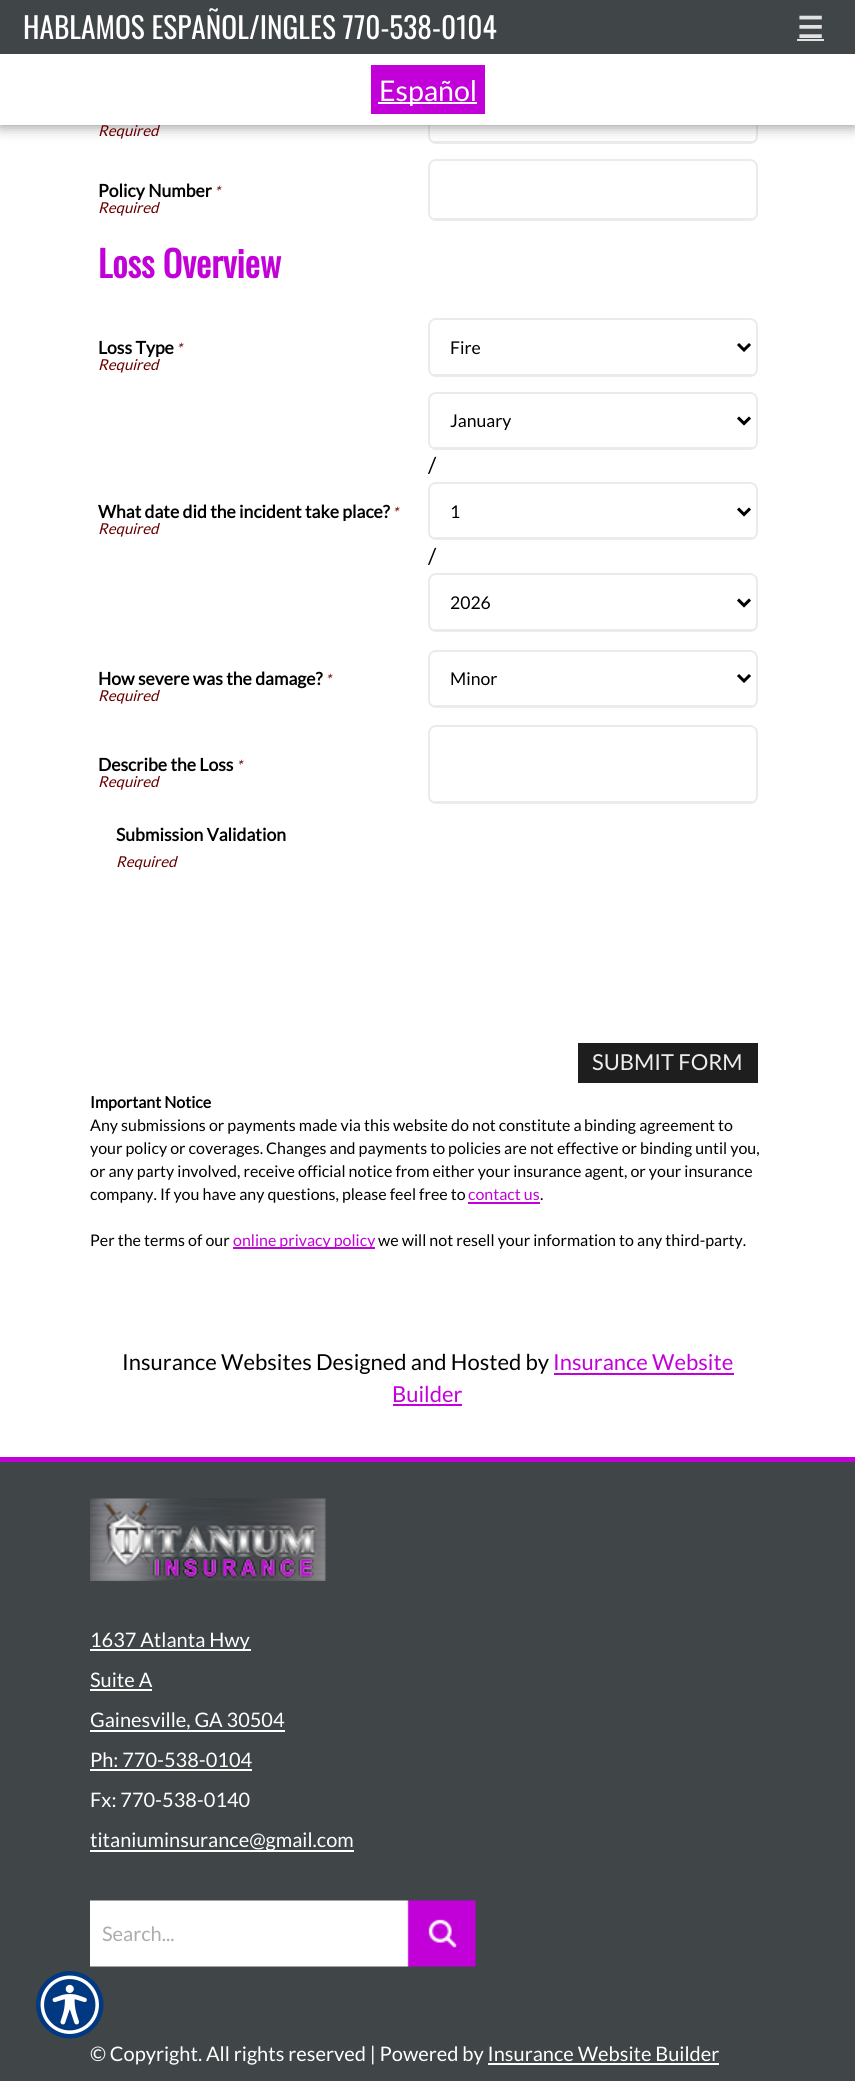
import math
import cairo

surface = cairo.ImageSurface(cairo.FORMAT_RGB24, 855, 2081)
cr = cairo.Context(surface)
options = cairo.FontOptions()
options.set_hint_metrics(cairo.HINT_METRICS_OFF)
options.set_hint_style(cairo.HINT_STYLE_NONE)
cr.set_font_options(options)
cr.set_miter_limit(4)


def rgb(code):
    cr.set_source_rgb(*(v / 255 for v in bytes.fromhex(code[-6:])))


def rrect(x, y, w, h, r):
    cr.new_sub_path()
    for i, (u, v) in enumerate([(x + w - r, y + h - r), (x + r, y + h - r), (x + r, y + r), (x + w - r, y + r)]):
        cr.arc(u, v, r, i * math.pi / 2, (i + 1) * math.pi / 2)
    cr.close_path()


def soft_shadow(x, y, w, h, r, blur, alpha):
    cr.push_group_with_content(cairo.CONTENT_ALPHA)
    cr.set_operator(cairo.OPERATOR_SOURCE)
    for i in range(15, -16, -2):
        e = blur * i / 6
        if min(w, h) + 2 * e > 0:
            cr.set_source_rgba(0, 0, 0, alpha * math.erfc((i - 1) / 8.5) / 2)
            rrect(x - e, y - e, w + 2 * e, h + 2 * e, max(0, min(r + e + blur * .6, min(w, h) / 2 + e)))
            cr.fill()
    cr.mask(cr.pop_group())


def image(path, x, y, w, h):
    cr.save()
    cr.set_source_surface(cairo.ImageSurface.create_from_png(path), x, y)
    cr.rectangle(x, y, w, h)
    cr.fill()
    cr.restore()


rgb("#ffffff")
cr.paint()
rrect(429, 84, 328, 59, 7)
rgb("#ebebeb")
cr.stroke()
cr.rectangle(432, 141, 323, 2)
cr.fill()
rgb("#000000")
soft_shadow(0, 0, 855, 125, 0, 7.5, 0.5)
rgb("#404548")
cr.rectangle(0, 0, 855, 54)
cr.fill()
rgb("#e2e2e2")
cr.rectangle(797, 39, 27, 2)
cr.fill()
rrect(429, 160, 328, 60, 7)
rgb("#ebebeb")
cr.stroke()
cr.rectangle(432, 218, 323, 2)
cr.fill()
rrect(429, 319, 328, 57, 7)
cr.stroke()
cr.rectangle(432, 374, 323, 2)
cr.fill()
cr.new_path()
cr.move_to(738, 344)
cr.line_to(744, 350)
cr.line_to(750, 344)
rgb("#000000")
cr.set_line_width(3)
cr.stroke()
rrect(429, 393, 328, 56, 7)
rgb("#ebebeb")
cr.set_line_width(2)
cr.stroke()
cr.rectangle(432, 447, 323, 2)
cr.fill()
cr.new_path()
cr.move_to(738, 417.5)
cr.line_to(744, 423.5)
cr.line_to(750, 417.5)
rgb("#000000")
cr.set_line_width(3)
cr.stroke()
rrect(429, 483, 328, 56, 7)
rgb("#ebebeb")
cr.set_line_width(2)
cr.stroke()
cr.rectangle(432, 537, 323, 2)
cr.fill()
cr.new_path()
cr.move_to(738, 508.5)
cr.line_to(744, 514.5)
cr.line_to(750, 508.5)
rgb("#000000")
cr.set_line_width(3)
cr.stroke()
rrect(429, 574, 328, 57, 7)
rgb("#ebebeb")
cr.set_line_width(2)
cr.stroke()
cr.rectangle(432, 629, 323, 2)
cr.fill()
cr.new_path()
cr.move_to(738, 599.5)
cr.line_to(744, 605.5)
cr.line_to(750, 599.5)
rgb("#000000")
cr.set_line_width(3)
cr.stroke()
rrect(429, 651, 328, 56, 7)
rgb("#ebebeb")
cr.set_line_width(2)
cr.stroke()
cr.rectangle(432, 705, 323, 2)
cr.fill()
cr.new_path()
cr.move_to(738, 675)
cr.line_to(744, 681)
cr.line_to(750, 675)
rgb("#000000")
cr.set_line_width(3)
cr.stroke()
rrect(429, 726, 328, 77, 7)
rgb("#ebebeb")
cr.set_line_width(2)
cr.stroke()
for x, y, w, h, color in [
    (432, 801, 323, 2, "#ebebeb"),
    (578, 1043, 180, 40, "#1e1e1e"),
    (468, 1202, 72, 2, "#c201d8"),
    (233, 1247, 142, 2, "#c201d8"),
    (554, 1373, 180, 2, "#c201d8"),
    (393, 1404, 69, 2, "#c201d8"),
    (0, 1457, 855, 5, "#c201d8"),
    (0, 1462, 855, 619, "#404548"),
]:
    rgb(color)
    cr.rectangle(x, y, w, h)
    cr.fill()
image("img/1.png", 90, 1498, 236, 83)
for x, y, w, h, color in [
    (90, 1649, 161, 2, "#ffffff"),
    (90, 1689, 62, 2, "#ffffff"),
    (90, 1730, 195, 2, "#ffffff"),
    (90, 1769, 162, 2, "#ffffff"),
    (90, 1850, 264, 2, "#ffffff"),
]:
    rgb(color)
    cr.rectangle(x, y, w, h)
    cr.fill()
image("img/2.png", 90, 1900, 386, 67)
cr.rectangle(488, 2063, 231, 2)
cr.fill()
image("img/3.png", 36, 1971, 68, 68)
cr.select_font_face("Oswald")
cr.set_font_size(29.4)
cr.move_to(23, 39)
cr.show_text("HABLAMOS ESPAÑOL/INGLES 770-538-0104")
cr.select_font_face("DejaVu Sans", cairo.FONT_SLANT_NORMAL, cairo.FONT_WEIGHT_BOLD)
rgb("#e2e2e2")
cr.move_to(797, 38)
cr.show_text("☰")
cr.select_font_face("Lato", cairo.FONT_SLANT_ITALIC)
cr.set_font_size(15)
rgb("#660000")
cr.move_to(98, 136)
cr.show_text("Required")
for x, y, w, h, color in [
    (0, 54, 855, 71, "#ffffff"),
    (371, 65, 114, 49, "#c201d8"),
    (378, 102, 99, 2, "#ffffff"),
]:
    rgb(color)
    cr.rectangle(x, y, w, h)
    cr.fill()
cr.select_font_face("Lato")
cr.set_font_size(28.5)
cr.move_to(379, 101)
cr.show_text("Español")
cr.select_font_face("Lato", cairo.FONT_SLANT_NORMAL, cairo.FONT_WEIGHT_BOLD)
cr.set_font_size(17.6)
rgb("#000000")
cr.move_to(98, 197)
cr.show_text("Policy Number")
cr.select_font_face("Lato", cairo.FONT_SLANT_ITALIC)
cr.set_font_size(15)
rgb("#660000")
cr.move_to(98, 213)
cr.show_text("Required")
cr.move_to(214, 197)
cr.show_text("*")
cr.select_font_face("Oswald", cairo.FONT_SLANT_NORMAL, cairo.FONT_WEIGHT_BOLD)
cr.set_font_size(36)
rgb("#c201d8")
cr.move_to(98, 278)
cr.show_text("Loss Overview")
cr.select_font_face("Lato", cairo.FONT_SLANT_NORMAL, cairo.FONT_WEIGHT_BOLD)
cr.set_font_size(17.6)
rgb("#000000")
cr.move_to(98, 354)
cr.show_text("Loss Type")
cr.select_font_face("Lato", cairo.FONT_SLANT_ITALIC)
cr.set_font_size(15)
rgb("#660000")
cr.move_to(98, 370)
cr.show_text("Required")
cr.move_to(176, 354)
cr.show_text("*")
cr.select_font_face("Lato")
cr.set_font_size(17.6)
rgb("#000000")
cr.move_to(450, 354)
cr.show_text("Fire")
cr.select_font_face("Lato", cairo.FONT_SLANT_NORMAL, cairo.FONT_WEIGHT_BOLD)
cr.move_to(98, 518)
cr.show_text("What date did the incident take place?")
cr.select_font_face("Lato", cairo.FONT_SLANT_ITALIC)
cr.set_font_size(15)
rgb("#660000")
cr.move_to(98, 534)
cr.show_text("Required")
cr.move_to(392, 518)
cr.show_text("*")
cr.select_font_face("Lato")
cr.set_font_size(17.6)
rgb("#000000")
cr.move_to(450, 427)
cr.show_text("January")
cr.set_font_size(22)
cr.move_to(428, 473)
cr.show_text("/")
cr.set_font_size(17.6)
cr.move_to(450, 518)
cr.show_text("1")
cr.set_font_size(22)
cr.move_to(428, 564)
cr.show_text("/")
cr.set_font_size(17.6)
cr.move_to(450, 609)
cr.show_text("2026")
cr.select_font_face("Lato", cairo.FONT_SLANT_NORMAL, cairo.FONT_WEIGHT_BOLD)
cr.move_to(98, 685)
cr.show_text("How severe was the damage?")
cr.select_font_face("Lato", cairo.FONT_SLANT_ITALIC)
cr.set_font_size(15)
rgb("#660000")
cr.move_to(98, 701)
cr.show_text("Required")
cr.move_to(325, 685)
cr.show_text("*")
cr.select_font_face("Lato")
cr.set_font_size(17.6)
rgb("#000000")
cr.move_to(450, 685)
cr.show_text("Minor")
cr.select_font_face("Lato", cairo.FONT_SLANT_NORMAL, cairo.FONT_WEIGHT_BOLD)
cr.move_to(98, 771)
cr.show_text("Describe the Loss")
cr.select_font_face("Lato", cairo.FONT_SLANT_ITALIC)
cr.set_font_size(15)
rgb("#660000")
cr.move_to(98, 787)
cr.show_text("Required")
cr.move_to(236, 771)
cr.show_text("*")
cr.select_font_face("Lato", cairo.FONT_SLANT_NORMAL, cairo.FONT_WEIGHT_BOLD)
cr.set_font_size(17.6)
rgb("#000000")
cr.move_to(116, 841)
cr.show_text("Submission Validation")
cr.select_font_face("Lato", cairo.FONT_SLANT_ITALIC)
cr.set_font_size(15)
rgb("#660000")
cr.move_to(116, 867)
cr.show_text("Required")
cr.select_font_face("Lato")
cr.set_font_size(22)
rgb("#ededed")
cr.move_to(592, 1070)
cr.show_text("SUBMIT FORM")
cr.select_font_face("Lato", cairo.FONT_SLANT_NORMAL, cairo.FONT_WEIGHT_BOLD)
cr.set_font_size(16)
rgb("#000000")
cr.move_to(90, 1108)
cr.show_text("Important Notice")
cr.select_font_face("Lato")
for x, y, s in [
    (90, 1131, "Any submissions or payments made via this website do not constitute a"),
    (584, 1131, "binding agreement to"),
    (90, 1154, "your policy or coverages. Changes and payments to policies are not effective or binding until you,"),
    (90, 1177, "or any party involved, receive official notice from either your insurance agent, or your insurance"),
    (90, 1200, "company. If you have any questions, please feel free to"),
]:
    cr.move_to(x, y)
    cr.show_text(s)
rgb("#c201d8")
cr.move_to(468, 1200)
cr.show_text("contact us")
rgb("#000000")
cr.move_to(540, 1200)
cr.show_text(".")
cr.move_to(90, 1246)
cr.show_text("Per the terms of our")
rgb("#c201d8")
cr.move_to(233, 1246)
cr.show_text("online privacy policy")
rgb("#000000")
cr.move_to(378, 1246)
cr.show_text("we will not resell your information to any third-party.")
cr.set_font_size(22)
cr.move_to(122, 1370)
cr.show_text("Insurance Websites Designed and Hosted by")
rgb("#c201d8")
cr.move_to(553, 1370)
cr.show_text("Insurance Website")
cr.move_to(392, 1402)
cr.show_text("Builder")
cr.set_font_size(20)
rgb("#ffffff")
for x, y, s in [
    (90, 1647, "1637 Atlanta Hwy"),
    (90, 1687, "Suite A"),
    (90, 1727, "Gainesville, GA 30504"),
    (90, 1767, "Ph: 770-538-0104"),
    (90, 1807, "Fx: 770-538-0140"),
    (90, 1847, "titaniuminsurance@gmail.com"),
]:
    cr.move_to(x, y)
    cr.show_text(s)
rgb("#acacac")
cr.move_to(102, 1941)
cr.show_text("Search...")
rgb("#ffffff")
cr.move_to(90, 2061)
cr.show_text("© Copyright. All rights reserved | Powered by Insurance Website Builder")
surface.write_to_png("page.png")
